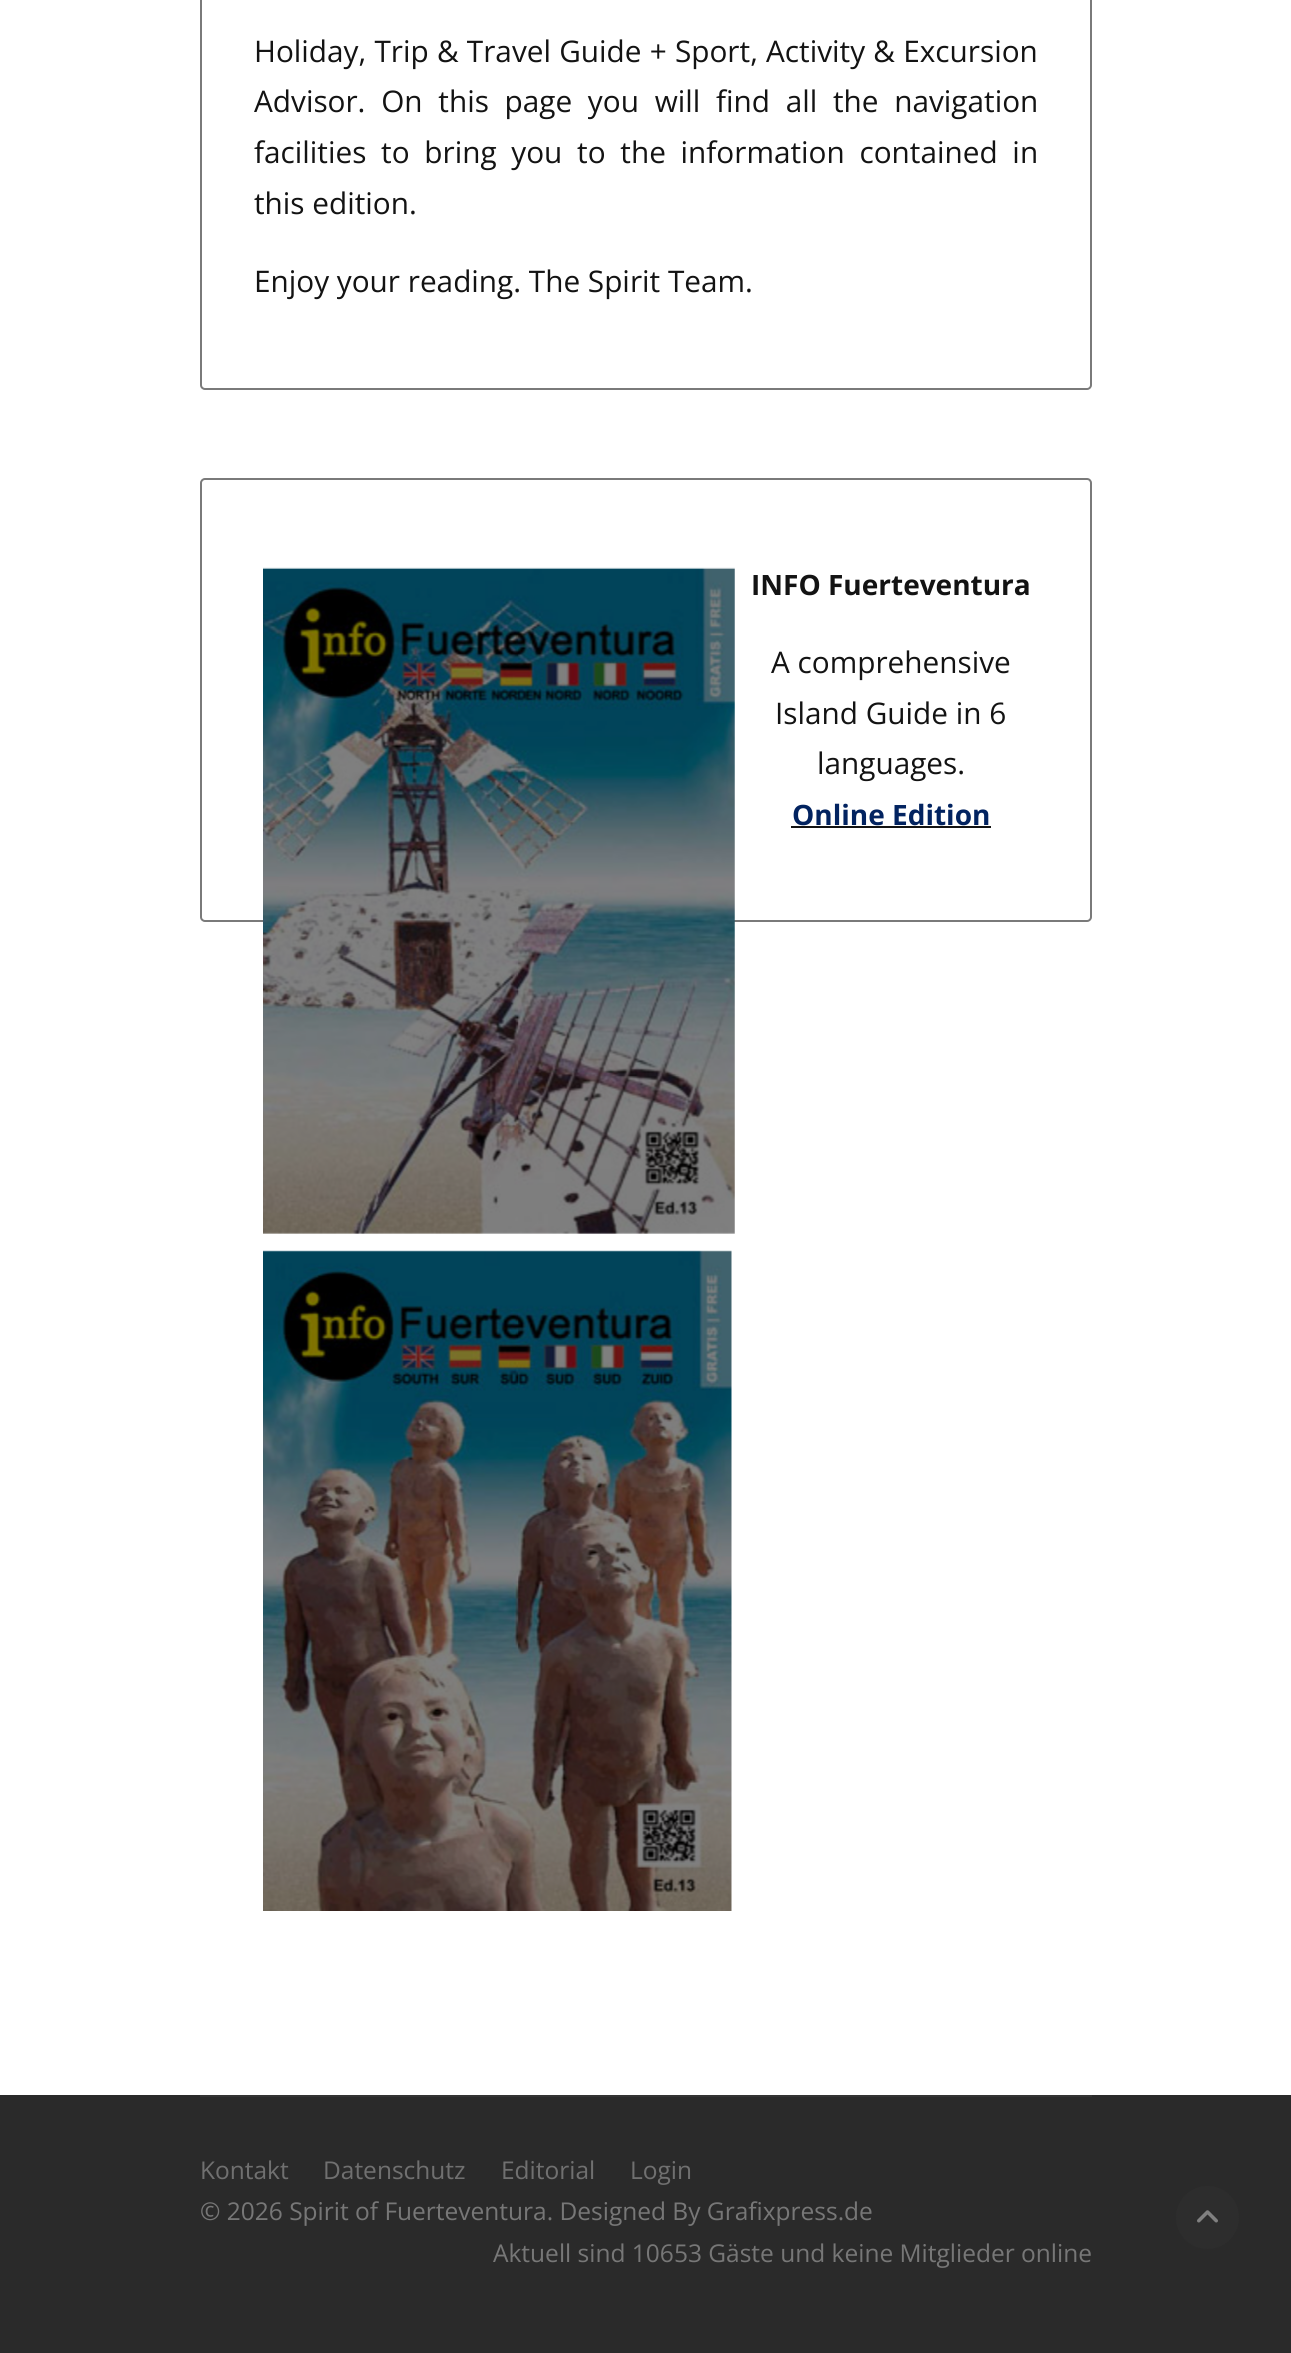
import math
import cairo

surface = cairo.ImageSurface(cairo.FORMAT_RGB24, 1291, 2353)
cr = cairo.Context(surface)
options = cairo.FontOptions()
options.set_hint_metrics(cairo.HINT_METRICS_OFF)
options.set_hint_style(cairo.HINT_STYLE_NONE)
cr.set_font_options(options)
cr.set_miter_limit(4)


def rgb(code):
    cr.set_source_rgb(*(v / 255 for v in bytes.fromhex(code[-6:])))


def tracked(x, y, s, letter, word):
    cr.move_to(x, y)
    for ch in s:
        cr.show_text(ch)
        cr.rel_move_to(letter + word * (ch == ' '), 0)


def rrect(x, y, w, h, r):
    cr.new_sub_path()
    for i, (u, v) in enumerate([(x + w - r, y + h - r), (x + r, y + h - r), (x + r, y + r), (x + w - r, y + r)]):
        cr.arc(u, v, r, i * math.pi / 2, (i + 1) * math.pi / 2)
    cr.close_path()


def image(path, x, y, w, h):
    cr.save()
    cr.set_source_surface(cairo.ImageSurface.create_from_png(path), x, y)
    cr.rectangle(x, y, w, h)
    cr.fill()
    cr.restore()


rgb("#ffffff")
cr.paint()
rrect(201, -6, 890, 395, 4)
rgb("#7a7a7a")
cr.stroke()
rrect(201, 479, 890, 442, 4)
cr.stroke()
image("img/1.png", 263, 567, 472, 667)
image("img/2.png", 263, 1250, 469, 661)
for x, y, w, h, color in [
    (791, 826, 200, 2, "#131313"),
    (0, 2095, 1291, 258, "#2a2a2a"),
    (200, 2095, 892, 2, "#333333"),
]:
    rgb(color)
    cr.rectangle(x, y, w, h)
    cr.fill()
rgb("#2d2d2d")
cr.arc(1207.5, 2217.5, 31.5, 0, 2 * math.pi)
cr.fill()
image("img/3.png", 1197, 2210, 21, 13)
cr.select_font_face("Open Sans")
cr.set_font_size(29.75)
rgb("#131313")
tracked(254, 62, "Holiday, Trip & Travel Guide + Sport, Activity & Excursion", 0, 0.5)
tracked(254, 112, "Advisor. On this page you will find all the navigation", 0, 8)
tracked(254, 163, "facilities to bring you to the information contained in", 0, 7)
cr.move_to(254, 214)
cr.show_text("this edition.")
cr.move_to(254, 292)
cr.show_text("Enjoy your reading. The Spirit Team.")
cr.select_font_face("Open Sans", cairo.FONT_SLANT_NORMAL, cairo.FONT_WEIGHT_BOLD)
cr.set_font_size(28)
cr.move_to(751, 595)
cr.show_text("INFO Fuerteventura")
cr.select_font_face("Open Sans")
cr.set_font_size(29.75)
for x, y, s in [
    (771, 673, "A comprehensive"),
    (775, 724, "Island Guide in 6"),
    (817, 774, "languages."),
]:
    cr.move_to(x, y)
    cr.show_text(s)
cr.select_font_face("Open Sans", cairo.FONT_SLANT_NORMAL, cairo.FONT_WEIGHT_BOLD)
cr.set_font_size(28)
rgb("#022360")
cr.move_to(792, 825)
cr.show_text("Online Edition")
cr.select_font_face("Open Sans")
cr.set_font_size(24.5)
rgb("#707070")
for x, y, s in [
    (200, 2179, "Kontakt"),
    (323, 2179, "Datenschutz"),
    (501, 2179, "Editorial"),
    (630, 2179, "Login"),
]:
    cr.move_to(x, y)
    cr.show_text(s)
rgb("#777777")
cr.move_to(200, 2220)
cr.show_text("© 2026 Spirit of Fuerteventura. Designed By Grafixpress.de")
cr.move_to(493, 2262)
cr.show_text("Aktuell sind 10653 Gäste und keine Mitglieder online")
surface.write_to_png("page.png")
